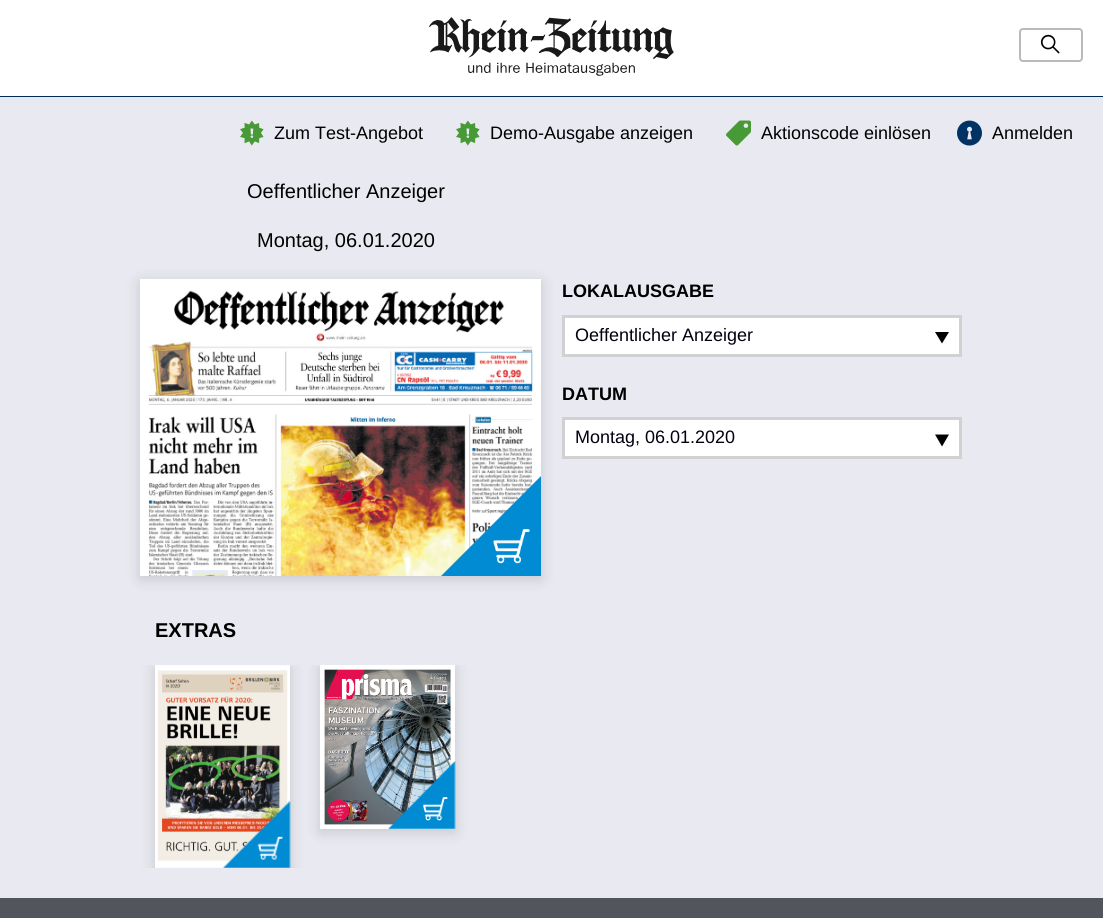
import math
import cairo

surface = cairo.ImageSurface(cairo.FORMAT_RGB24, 1103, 918)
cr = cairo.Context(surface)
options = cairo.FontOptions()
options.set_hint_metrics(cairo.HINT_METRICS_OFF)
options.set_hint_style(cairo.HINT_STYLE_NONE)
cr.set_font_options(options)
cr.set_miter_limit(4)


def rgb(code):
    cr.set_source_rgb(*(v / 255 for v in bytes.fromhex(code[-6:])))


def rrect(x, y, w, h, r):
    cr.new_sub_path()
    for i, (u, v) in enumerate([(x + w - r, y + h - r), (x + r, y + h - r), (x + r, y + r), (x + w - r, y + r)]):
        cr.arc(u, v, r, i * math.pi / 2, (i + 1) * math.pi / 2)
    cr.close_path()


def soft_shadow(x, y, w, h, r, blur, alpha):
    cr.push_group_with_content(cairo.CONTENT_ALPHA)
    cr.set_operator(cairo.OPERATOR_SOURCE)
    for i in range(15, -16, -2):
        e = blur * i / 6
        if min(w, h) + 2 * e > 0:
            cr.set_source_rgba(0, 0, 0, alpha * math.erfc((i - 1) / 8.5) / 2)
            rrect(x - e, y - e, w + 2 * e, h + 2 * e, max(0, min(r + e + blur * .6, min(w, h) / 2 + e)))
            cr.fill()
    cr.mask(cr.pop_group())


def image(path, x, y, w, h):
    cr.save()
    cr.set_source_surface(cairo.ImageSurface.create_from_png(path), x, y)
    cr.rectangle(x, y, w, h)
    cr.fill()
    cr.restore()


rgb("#e9e9f1")
cr.paint()
rgb("#ffffff")
cr.rectangle(0, 0, 1103, 96)
cr.fill()
rgb("#002b55")
cr.rectangle(0, 96, 1103, 1)
cr.fill()
image("img/1.png", 429, 17, 245, 59)
rrect(1020, 29, 62, 32, 3)
rgb("#bababa")
cr.stroke()
image("img/2.png", 1040, 34, 20, 20)
image("img/3.png", 240, 120, 24, 26)
image("img/3.png", 456, 120, 24, 26)
image("img/4.png", 726, 120, 25, 26)
image("img/5.png", 957, 120, 25, 26)
rgb("#000000")
soft_shadow(140, 282, 401, 297, 0, 7.5, 0.15)
image("img/6.png", 140, 279, 401, 297)
image("img/7.png", 441, 476, 100, 100)
rgb("#ffffff")
cr.rectangle(563.5, 316.5, 397, 39)
cr.fill_preserve()
rgb("#d1d1d1")
cr.set_line_width(3)
cr.stroke()
rgb("#000000")
cr.new_path()
cr.move_to(935, 332)
cr.line_to(949, 332)
cr.line_to(942, 343.5)
cr.close_path()
cr.fill()
rgb("#ffffff")
cr.rectangle(563.5, 418.5, 397, 39)
cr.fill_preserve()
rgb("#d1d1d1")
cr.stroke()
rgb("#000000")
cr.new_path()
cr.move_to(935, 434.5)
cr.line_to(949, 434.5)
cr.line_to(942, 446.5)
cr.close_path()
cr.fill()
cr.save()
cr.rectangle(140, 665, 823, 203)
cr.clip()
rgb("#000000")
soft_shadow(155, 668, 135, 203, 0, 7.5, 0.15)
cr.restore()
image("img/8.png", 155, 665, 135, 203)
image("img/9.png", 223, 801, 68, 67)
cr.save()
cr.rectangle(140, 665, 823, 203)
cr.clip()
rgb("#000000")
soft_shadow(320, 668, 135, 164, 0, 7.5, 0.15)
cr.restore()
image("img/10.png", 320, 665, 135, 164)
image("img/11.png", 388, 761, 68, 68)
rgb("#52565c")
cr.rectangle(0, 898, 1103, 20)
cr.fill()
cr.select_font_face("Liberation Sans")
cr.set_font_size(18)
rgb("#000000")
for x, y, s in [
    (274, 139, "Zum Test-Angebot"),
    (490, 139, "Demo-Ausgabe anzeigen"),
    (761, 139, "Aktionscode einlösen"),
    (992, 139, "Anmelden"),
]:
    cr.move_to(x, y)
    cr.show_text(s)
cr.set_font_size(20)
cr.move_to(247, 198)
cr.show_text("Oeffentlicher Anzeiger")
cr.move_to(257, 247)
cr.show_text("Montag, 06.01.2020")
cr.select_font_face("Liberation Sans", cairo.FONT_SLANT_NORMAL, cairo.FONT_WEIGHT_BOLD)
cr.set_font_size(18)
cr.move_to(562, 297)
cr.show_text("LOKALAUSGABE")
cr.select_font_face("Liberation Sans")
rgb("#00000f")
cr.move_to(575, 341)
cr.show_text("Oeffentlicher Anzeiger")
cr.select_font_face("Liberation Sans", cairo.FONT_SLANT_NORMAL, cairo.FONT_WEIGHT_BOLD)
rgb("#000000")
cr.move_to(562, 400)
cr.show_text("DATUM")
cr.select_font_face("Liberation Sans")
rgb("#00000f")
cr.move_to(575, 443)
cr.show_text("Montag, 06.01.2020")
cr.select_font_face("Liberation Sans", cairo.FONT_SLANT_NORMAL, cairo.FONT_WEIGHT_BOLD)
cr.set_font_size(20)
rgb("#000000")
cr.move_to(155, 637)
cr.show_text("EXTRAS")
surface.write_to_png("page.png")
